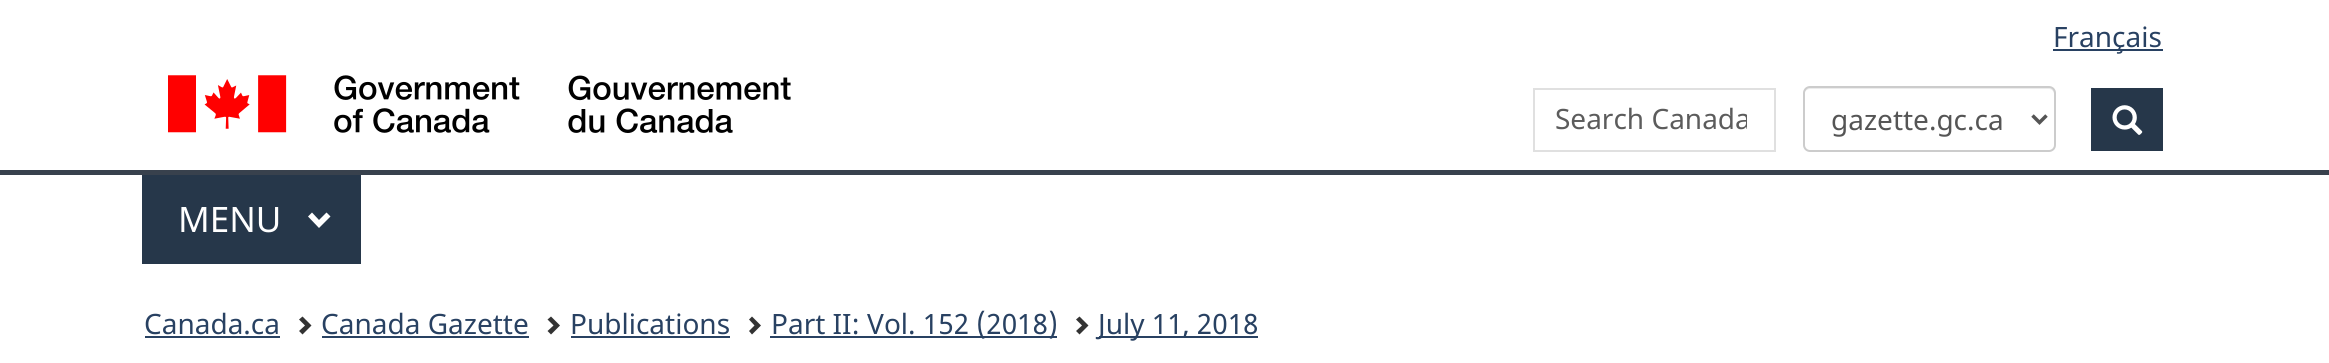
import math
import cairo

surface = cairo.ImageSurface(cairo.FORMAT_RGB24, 2329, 363)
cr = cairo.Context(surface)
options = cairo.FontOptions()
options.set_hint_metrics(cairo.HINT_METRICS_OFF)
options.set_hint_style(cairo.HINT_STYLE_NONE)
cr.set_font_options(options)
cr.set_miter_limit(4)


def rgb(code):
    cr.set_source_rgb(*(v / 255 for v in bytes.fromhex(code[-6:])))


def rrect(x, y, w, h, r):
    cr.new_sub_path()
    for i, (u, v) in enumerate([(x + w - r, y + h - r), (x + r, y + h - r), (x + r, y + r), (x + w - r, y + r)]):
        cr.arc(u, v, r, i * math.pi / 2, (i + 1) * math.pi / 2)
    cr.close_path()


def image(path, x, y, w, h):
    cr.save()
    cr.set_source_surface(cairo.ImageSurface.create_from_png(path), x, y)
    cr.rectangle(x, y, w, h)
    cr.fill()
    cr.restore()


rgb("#ffffff")
cr.paint()
rgb("#284162")
cr.rectangle(2053, 49, 110, 2)
cr.fill()
image("img/1.png", 168, 75, 623, 58)
cr.rectangle(1534, 89, 241, 62)
rgb("#e0e0e0")
cr.stroke()
rgb("#ececec")
cr.new_path()
cr.move_to(1810, 89)
cr.line_to(2049, 89)
cr.curve_to(2052, 89, 2054, 92, 2054, 94)
cr.line_to(2054, 147)
cr.line_to(2053, 150)
cr.curve_to(2054, 149, 2055, 147, 2055, 146)
cr.line_to(2055, 93)
cr.curve_to(2055, 90, 2053, 88, 2050, 88)
cr.line_to(1809, 88)
cr.curve_to(1806, 88, 1804, 90, 1804, 93)
cr.line_to(1804, 94)
cr.curve_to(1804, 92, 1807, 89, 1810, 89)
cr.close_path()
cr.fill()
rrect(1804, 87, 251, 64, 6)
rgb("#cccccc")
cr.stroke()
cr.new_path()
cr.move_to(2032.5, 115.5)
cr.line_to(2039.5, 122.5)
cr.line_to(2046.5, 115.5)
rgb("#555555")
cr.set_line_width(3.5)
cr.stroke()
rgb("#26374a")
cr.rectangle(2091, 88, 72, 63)
cr.fill()
image("img/2.png", 2112, 105, 31, 30)
rgb("#38414d")
cr.rectangle(0, 170, 2329, 5)
cr.fill()
rgb("#26374a")
cr.rectangle(142, 175, 219, 89)
cr.fill()
rgb("#ffffff")
cr.new_path()
cr.move_to(330.5, 216.5)
cr.line_to(319, 228)
cr.line_to(308, 216.5)
cr.line_to(312, 212.5)
cr.line_to(319, 220)
cr.line_to(326.5, 212.5)
cr.close_path()
cr.fill()
rgb("#284162")
cr.rectangle(145, 336, 135, 2)
cr.fill()
rgb("#333333")
cr.new_path()
cr.move_to(311.5, 325.5)
cr.line_to(302.5, 334.5)
cr.line_to(299, 331)
cr.line_to(305, 325.5)
cr.line_to(299, 319.5)
cr.line_to(302.5, 316.5)
cr.close_path()
cr.fill()
rgb("#284162")
cr.rectangle(322, 336, 207, 2)
cr.fill()
rgb("#333333")
cr.new_path()
cr.move_to(560, 325.5)
cr.line_to(551, 334.5)
cr.line_to(547.5, 331)
cr.line_to(553.5, 325.5)
cr.line_to(547.5, 319.5)
cr.line_to(551, 316.5)
cr.close_path()
cr.fill()
rgb("#284162")
cr.rectangle(571, 336, 159, 2)
cr.fill()
rgb("#333333")
cr.new_path()
cr.move_to(761, 325.5)
cr.line_to(752, 334.5)
cr.line_to(749, 331)
cr.line_to(754.5, 325.5)
cr.line_to(749, 319.5)
cr.line_to(752, 316.5)
cr.close_path()
cr.fill()
rgb("#284162")
cr.rectangle(770, 336, 287, 2)
cr.fill()
rgb("#333333")
cr.new_path()
cr.move_to(1088.5, 325.5)
cr.line_to(1079.5, 334.5)
cr.line_to(1076, 331)
cr.line_to(1082, 325.5)
cr.line_to(1076, 319.5)
cr.line_to(1079.5, 316.5)
cr.close_path()
cr.fill()
rgb("#284162")
cr.rectangle(1099, 336, 159, 2)
cr.fill()
cr.select_font_face("Noto Sans")
cr.set_font_size(28)
cr.move_to(2053, 47)
cr.show_text("Français")
cr.save()
cr.rectangle(1556, 100, 191, 38)
cr.clip()
rgb("#5c5c5c")
cr.move_to(1555, 129)
cr.show_text("Search Canada")
cr.restore()
rgb("#555555")
cr.move_to(1831, 130)
cr.show_text("gazette.gc.ca")
cr.set_font_size(35)
rgb("#ffffff")
cr.move_to(178, 232)
cr.show_text("MENU")
cr.set_font_size(28)
rgb("#284162")
for x, y, s in [
    (144, 334, "Canada.ca"),
    (321, 334, "Canada Gazette"),
    (570, 334, "Publications"),
    (771, 334, "Part II: Vol. 152 (2018)"),
    (1098, 334, "July 11, 2018"),
]:
    cr.move_to(x, y)
    cr.show_text(s)
surface.write_to_png("page.png")
